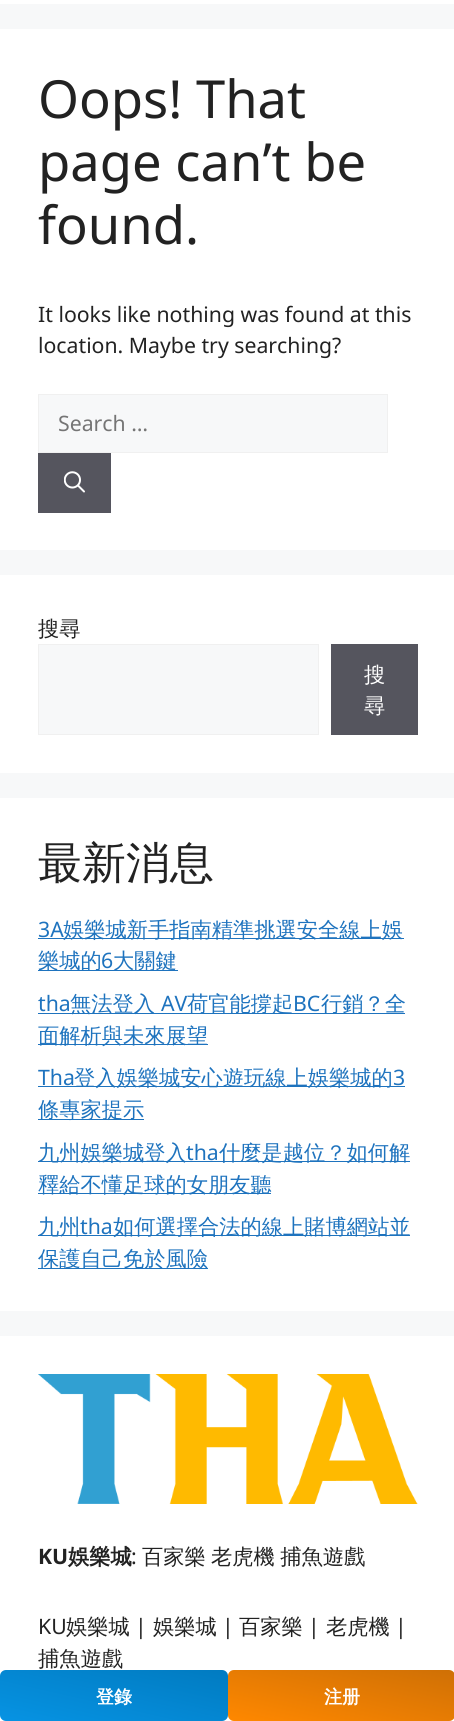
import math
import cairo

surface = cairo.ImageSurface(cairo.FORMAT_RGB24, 454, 1721)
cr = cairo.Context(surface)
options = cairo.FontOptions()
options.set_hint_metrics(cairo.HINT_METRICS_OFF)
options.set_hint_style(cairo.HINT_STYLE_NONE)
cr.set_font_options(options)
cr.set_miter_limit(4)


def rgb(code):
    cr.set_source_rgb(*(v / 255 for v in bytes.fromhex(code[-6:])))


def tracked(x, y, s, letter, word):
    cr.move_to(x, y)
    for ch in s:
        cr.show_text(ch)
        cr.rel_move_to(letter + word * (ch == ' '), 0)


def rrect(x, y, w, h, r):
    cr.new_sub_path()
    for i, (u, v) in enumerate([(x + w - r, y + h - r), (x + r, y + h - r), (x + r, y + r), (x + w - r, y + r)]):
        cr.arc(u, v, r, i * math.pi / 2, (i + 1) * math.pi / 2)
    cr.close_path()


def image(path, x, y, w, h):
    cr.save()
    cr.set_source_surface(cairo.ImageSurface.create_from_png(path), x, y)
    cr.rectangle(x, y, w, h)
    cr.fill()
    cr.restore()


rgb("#f7f8f9")
cr.paint()
rgb("#ffffff")
cr.rectangle(0, 0, 454, 4)
cr.fill()
cr.rectangle(0, 29, 454, 521)
cr.fill()
rgb("#f7f8f9")
cr.rectangle(38.5, 394.5, 349, 58)
cr.fill_preserve()
rgb("#f0f0f0")
cr.set_line_width(1)
cr.stroke()
rgb("#55555e")
cr.rectangle(38, 453, 73, 60)
cr.fill()
image("img/1.png", 64, 471, 21, 22)
rgb("#ffffff")
cr.rectangle(0, 575, 454, 198)
cr.fill()
rgb("#f7f8f9")
cr.rectangle(38.5, 644.5, 280, 90)
cr.fill_preserve()
rgb("#f0f0f0")
cr.stroke()
for x, y, w, h, color in [
    (331, 644, 87, 91, "#55555e"),
    (0, 798, 454, 513, "#ffffff"),
    (38, 938, 366, 1, "#1e73be"),
    (38, 970, 140, 1, "#1e73be"),
    (38, 1013, 367, 1, "#1e73be"),
    (38, 1044, 170, 1, "#1e73be"),
    (38, 1086, 367, 1, "#1e73be"),
    (38, 1119, 106, 1, "#1e73be"),
    (38, 1161, 372, 1, "#1e73be"),
    (38, 1193, 233, 1, "#1e73be"),
    (38, 1235, 372, 1, "#1e73be"),
    (38, 1268, 170, 1, "#1e73be"),
    (0, 1336, 454, 385, "#ffffff"),
]:
    rgb(color)
    cr.rectangle(x, y, w, h)
    cr.fill()
image("img/2.png", 38, 1374, 380, 130)
gradient = cairo.LinearGradient(103, 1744, 125, 1647)
gradient.add_color_stop_rgba(0, 0.024, 0.576, 0.89, 1)
gradient.add_color_stop_rgba(0.25, 0.02, 0.553, 0.855, 1)
gradient.add_color_stop_rgba(0.5, 0.016, 0.529, 0.824, 1)
gradient.add_color_stop_rgba(0.75, 0.008, 0.506, 0.788, 1)
gradient.add_color_stop_rgba(1, 0.004, 0.482, 0.757, 1)
cr.set_source(gradient)
rrect(0, 1670, 228, 51, 6)
cr.fill()
gradient = cairo.LinearGradient(330, 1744, 352, 1647)
gradient.add_color_stop_rgba(0, 1, 0.533, 0, 1)
gradient.add_color_stop_rgba(0.25, 0.953, 0.51, 0.004, 1)
gradient.add_color_stop_rgba(0.5, 0.906, 0.486, 0.012, 1)
gradient.add_color_stop_rgba(0.75, 0.859, 0.463, 0.016, 1)
gradient.add_color_stop_rgba(1, 0.812, 0.439, 0.02, 1)
cr.set_source(gradient)
rrect(228, 1670, 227, 51, 6)
cr.fill()
cr.select_font_face("Noto Sans")
cr.set_font_size(52.5)
rgb("#222222")
for x, y, s in [
    (38, 118, "Oops! That"),
    (38, 181, "page can’t be"),
    (38, 244, "found."),
]:
    cr.move_to(x, y)
    cr.show_text(s)
cr.set_font_size(21.25)
cr.move_to(38, 322)
cr.show_text("It looks like nothing was found at this")
cr.move_to(38, 353)
cr.show_text("location. Maybe try searching?")
rgb("#757575")
cr.move_to(58, 431)
cr.show_text("Search …")
cr.select_font_face("WenQuanYi Zen Hei Medium")
rgb("#222222")
cr.move_to(38, 636)
cr.show_text("搜尋")
rgb("#ffffff")
cr.move_to(364, 682)
cr.show_text("搜")
cr.move_to(364, 713)
cr.show_text("尋")
cr.set_font_size(44)
rgb("#222222")
cr.move_to(38, 878)
cr.show_text("最新消息")
cr.select_font_face("Noto Sans")
cr.set_font_size(21.25)
rgb("#1e73be")
cr.move_to(38, 937)
cr.show_text("3A")
cr.select_font_face("WenQuanYi Zen Hei Medium")
cr.move_to(63, 937)
cr.show_text("娛樂城新手指南精準挑選安全線上娛")
cr.move_to(38, 968)
cr.show_text("樂城的")
cr.select_font_face("Noto Sans")
cr.move_to(101, 968)
cr.show_text("6")
cr.select_font_face("WenQuanYi Zen Hei Medium")
cr.move_to(113, 968)
cr.show_text("大關鍵")
cr.select_font_face("Noto Sans")
cr.move_to(38, 1011)
cr.show_text("tha")
cr.select_font_face("WenQuanYi Zen Hei Medium")
cr.move_to(70, 1011)
cr.show_text("無法登入")
cr.select_font_face("Noto Sans")
cr.move_to(161, 1011)
cr.show_text("AV")
cr.select_font_face("WenQuanYi Zen Hei Medium")
cr.move_to(187, 1011)
cr.show_text("荷官能撐起")
cr.select_font_face("Noto Sans")
cr.move_to(293, 1011)
cr.show_text("BC")
cr.select_font_face("WenQuanYi Zen Hei Medium")
cr.move_to(321, 1011)
cr.show_text("行銷？全")
cr.move_to(38, 1043)
cr.show_text("面解析與未來展望")
cr.select_font_face("Noto Sans")
cr.move_to(38, 1085)
cr.show_text("Tha")
cr.select_font_face("WenQuanYi Zen Hei Medium")
cr.move_to(74, 1085)
cr.show_text("登入娛樂城安心遊玩線上娛樂城的")
cr.select_font_face("Noto Sans")
cr.move_to(393, 1085)
cr.show_text("3")
cr.select_font_face("WenQuanYi Zen Hei Medium")
cr.move_to(38, 1117)
cr.show_text("條專家提示")
cr.move_to(38, 1160)
cr.show_text("九州娛樂城登入")
cr.select_font_face("Noto Sans")
cr.move_to(186, 1160)
cr.show_text("tha")
cr.select_font_face("WenQuanYi Zen Hei Medium")
for x, y, s in [
    (219, 1160, "什麼是越位？如何解"),
    (38, 1192, "釋給不懂足球的女朋友聽"),
    (38, 1234, "九州"),
]:
    cr.move_to(x, y)
    cr.show_text(s)
cr.select_font_face("Noto Sans")
cr.move_to(80, 1234)
cr.show_text("tha")
cr.select_font_face("WenQuanYi Zen Hei Medium")
cr.move_to(113, 1234)
cr.show_text("如何選擇合法的線上賭博網站並")
cr.move_to(38, 1266)
cr.show_text("保護自己免於風險")
cr.select_font_face("Noto Sans", cairo.FONT_SLANT_NORMAL, cairo.FONT_WEIGHT_BOLD)
rgb("#222222")
cr.move_to(38, 1564)
cr.show_text("KU")
cr.select_font_face("WenQuanYi Zen Hei", cairo.FONT_SLANT_NORMAL, cairo.FONT_WEIGHT_BOLD)
cr.move_to(68, 1564)
cr.show_text("娛樂城")
cr.select_font_face("Noto Sans")
cr.move_to(131, 1564)
cr.show_text(":")
cr.select_font_face("WenQuanYi Zen Hei Medium")
tracked(142, 1564, "百家樂 老虎機 捕魚遊戲", 0, -1)
cr.select_font_face("Noto Sans")
cr.move_to(38, 1634)
cr.show_text("KU")
cr.select_font_face("WenQuanYi Zen Hei Medium")
cr.move_to(66, 1634)
cr.show_text("娛樂城")
cr.select_font_face("Noto Sans")
cr.move_to(135, 1634)
cr.show_text("|")
cr.select_font_face("WenQuanYi Zen Hei Medium")
cr.move_to(153, 1634)
cr.show_text("娛樂城")
cr.select_font_face("Noto Sans")
cr.move_to(222, 1634)
cr.show_text("|")
cr.select_font_face("WenQuanYi Zen Hei Medium")
cr.move_to(239, 1634)
cr.show_text("百家樂")
cr.select_font_face("Noto Sans")
cr.move_to(308, 1634)
cr.show_text("|")
cr.select_font_face("WenQuanYi Zen Hei Medium")
cr.move_to(326, 1634)
cr.show_text("老虎機")
cr.select_font_face("Noto Sans")
cr.move_to(395, 1634)
cr.show_text("|")
cr.select_font_face("WenQuanYi Zen Hei Medium")
cr.move_to(38, 1666)
cr.show_text("捕魚遊戲")
cr.select_font_face("WenQuanYi Zen Hei", cairo.FONT_SLANT_NORMAL, cairo.FONT_WEIGHT_BOLD)
cr.set_font_size(18)
rgb("#ffffff")
cr.move_to(96, 1703)
cr.show_text("登錄")
cr.move_to(324, 1703)
cr.show_text("注册")
surface.write_to_png("page.png")
